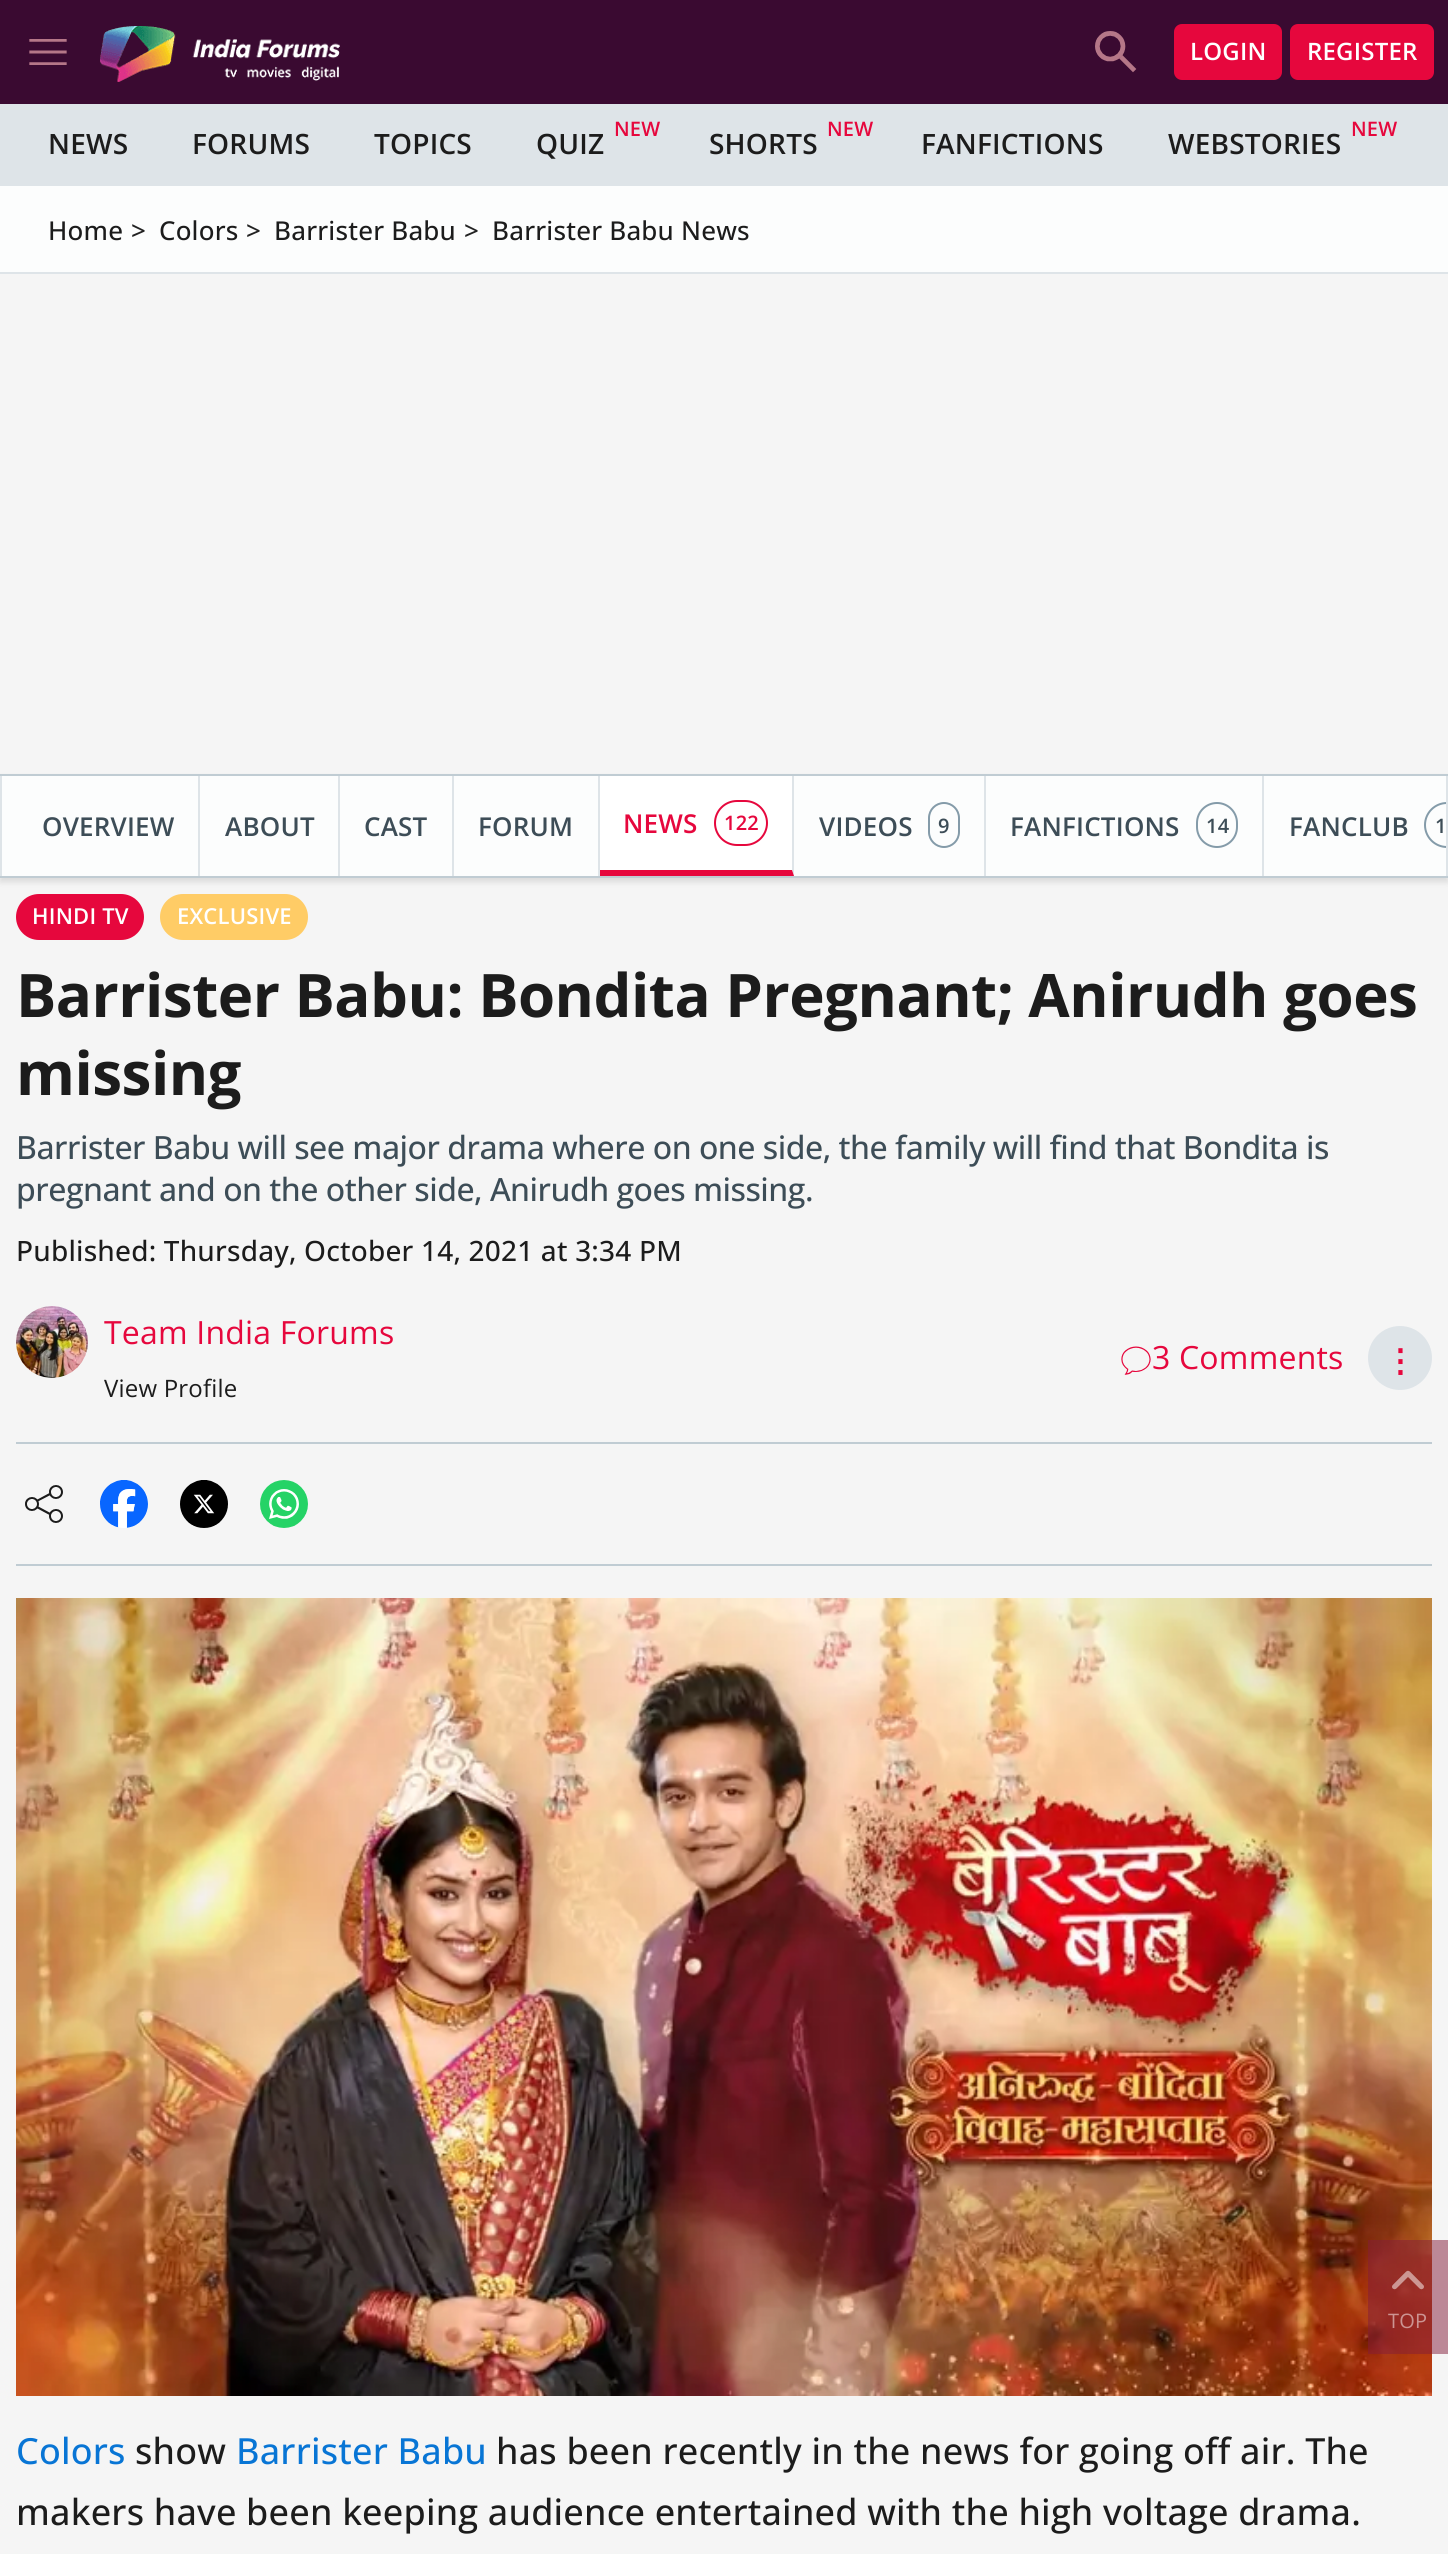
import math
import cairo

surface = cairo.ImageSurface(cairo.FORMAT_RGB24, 1448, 2554)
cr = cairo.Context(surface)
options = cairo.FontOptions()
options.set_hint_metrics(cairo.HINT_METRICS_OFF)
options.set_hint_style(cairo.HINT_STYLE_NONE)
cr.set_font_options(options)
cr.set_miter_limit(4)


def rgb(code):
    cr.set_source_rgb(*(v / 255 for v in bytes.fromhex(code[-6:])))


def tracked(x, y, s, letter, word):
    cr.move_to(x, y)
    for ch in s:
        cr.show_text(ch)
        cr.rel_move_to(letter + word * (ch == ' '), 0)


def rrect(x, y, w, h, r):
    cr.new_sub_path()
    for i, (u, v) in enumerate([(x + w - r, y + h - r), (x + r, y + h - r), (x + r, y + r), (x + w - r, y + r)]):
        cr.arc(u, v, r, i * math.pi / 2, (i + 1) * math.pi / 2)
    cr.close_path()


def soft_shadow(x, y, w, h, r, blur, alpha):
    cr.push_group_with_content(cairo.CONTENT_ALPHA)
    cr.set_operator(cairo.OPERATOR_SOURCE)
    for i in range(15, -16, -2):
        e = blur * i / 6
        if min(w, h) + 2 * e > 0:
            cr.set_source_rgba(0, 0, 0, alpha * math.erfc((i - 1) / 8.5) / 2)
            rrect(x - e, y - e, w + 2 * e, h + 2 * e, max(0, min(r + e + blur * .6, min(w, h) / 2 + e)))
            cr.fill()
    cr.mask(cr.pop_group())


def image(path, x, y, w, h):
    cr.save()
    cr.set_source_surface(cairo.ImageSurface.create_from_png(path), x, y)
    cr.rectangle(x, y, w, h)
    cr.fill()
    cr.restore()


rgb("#f5f5f5")
cr.paint()
rgb("#3a0a31")
cr.rectangle(0, 0, 1448, 104)
cr.fill()
image("img/1.png", 29, 39, 38, 26)
image("img/2.png", 100, 26, 240, 56)
image("img/3.png", 1095, 31, 42, 42)
rgb("#e6073d")
rrect(1174, 24, 108, 56, 8)
cr.fill()
rrect(1290, 24, 144, 56, 8)
cr.fill()
for x, y, w, h, color in [
    (0, 104, 1448, 82, "#dee4e8"),
    (0, 186, 1448, 86, "#fcfdfd"),
    (0, 272, 1448, 2, "#dee4e8"),
]:
    rgb(color)
    cr.rectangle(x, y, w, h)
    cr.fill()
rgb("#000000")
soft_shadow(0, 778, 1448, 104, 0, 3, 0.11)
for x, y, w, h, color in [
    (2, 776, 1444, 100, "#fcfdfd"),
    (0, 774, 1448, 2, "#c0ccd3"),
    (0, 876, 1448, 2, "#c0ccd3"),
    (1446, 776, 2, 100, "#dee4e8"),
    (0, 776, 2, 100, "#dee4e8"),
    (198, 776, 2, 100, "#dee4e8"),
    (338, 776, 2, 100, "#dee4e8"),
    (452, 776, 2, 100, "#dee4e8"),
    (598, 776, 2, 100, "#dee4e8"),
    (600, 776, 194, 100, "#ffffff"),
]:
    rgb(color)
    cr.rectangle(x, y, w, h)
    cr.fill()
rgb("#dee4e8")
cr.new_path()
cr.move_to(794, 776)
cr.line_to(794, 876)
cr.line_to(792, 870)
cr.line_to(792, 776)
cr.close_path()
cr.fill()
rgb("#e6073d")
cr.new_path()
cr.move_to(794, 876)
cr.line_to(600, 876)
cr.line_to(600, 870)
cr.line_to(792, 870)
cr.close_path()
cr.fill()
rrect(715, 801, 52, 44, 22)
cr.stroke()
rgb("#dee4e8")
cr.rectangle(984, 776, 2, 100)
cr.fill()
rrect(929, 803, 30, 44, 15)
rgb("#849ba9")
cr.stroke()
rgb("#dee4e8")
cr.rectangle(1262, 776, 2, 100)
cr.fill()
rrect(1197, 803, 40, 44, 20)
rgb("#849ba9")
cr.stroke()
cr.save()
cr.rectangle(2, 776, 1444, 100)
cr.clip()
rrect(1425, 803, 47, 44, 22)
cr.stroke()
cr.restore()
rgb("#e6073d")
rrect(16, 894, 128, 46, 23)
cr.fill()
rgb("#ffcc66")
rrect(160, 894, 148, 46, 23)
cr.fill()
image("img/4.png", 16, 1306, 72, 72)
image("img/5.png", 1121, 1346, 30, 29)
rgb("#dee4e8")
cr.arc(1400, 1358, 32, 0, 2 * math.pi)
cr.fill()
rgb("#c0ccd3")
cr.rectangle(16, 1442, 1416, 2)
cr.fill()
cr.rectangle(16, 1564, 1416, 2)
cr.fill()
image("img/6.png", 25, 1485, 38, 38)
image("img/7.png", 100, 1480, 48, 48)
image("img/8.png", 180, 1480, 48, 48)
image("img/9.png", 260, 1480, 48, 48)
image("img/10.png", 16, 1598, 1416, 798)
cr.set_source_rgba(0.522, 0.11, 0.231, 0.5)
cr.rectangle(1368, 2240, 80, 114)
cr.fill()
image("img/11.png", 1392, 2270, 32, 20)
cr.select_font_face("Open Sans SemiBold")
cr.set_font_size(24)
rgb("#ffffff")
tracked(1190, 60, "LOGIN", 0.2, 0)
tracked(1307, 60, "REGISTER", 0.2, 0)
cr.set_font_size(28)
rgb("#1c1c1c")
for x, y, s in [
    (48, 154, "NEWS"),
    (192, 154, "FORUMS"),
    (374, 154, "TOPICS"),
]:
    tracked(x, y, s, 0.2, 0)
cr.set_font_size(20)
rgb("#e6073d")
tracked(614, 136, "NEW", 0.2, 0)
cr.set_font_size(28)
rgb("#1c1c1c")
tracked(536, 154, "QUIZ", 0.2, 0)
cr.set_font_size(20)
rgb("#e6073d")
tracked(827, 136, "NEW", 0.2, 0)
cr.set_font_size(28)
rgb("#1c1c1c")
tracked(709, 154, "SHORTS", 0.2, 0)
tracked(921, 154, "FANFICTIONS", 0.2, 0)
cr.set_font_size(20)
rgb("#e6073d")
tracked(1351, 136, "NEW", 0.2, 0)
cr.set_font_size(28)
rgb("#1c1c1c")
tracked(1168, 154, "WEBSTORIES", 0.2, 0)
cr.select_font_face("Open Sans Medium")
cr.set_font_size(26)
tracked(48, 240, "Home", 0.2, 0)
rgb("#222222")
tracked(131, 240, ">", 0.2, 0)
rgb("#1c1c1c")
tracked(159, 240, "Colors", 0.2, 0)
rgb("#222222")
tracked(246, 240, ">", 0.2, 0)
rgb("#1c1c1c")
tracked(274, 240, "Barrister Babu", 0.2, 0)
rgb("#222222")
tracked(464, 240, ">", 0.2, 0)
rgb("#1c1c1c")
tracked(492, 240, "Barrister Babu News", 0.2, 0)
cr.select_font_face("Open Sans SemiBold")
rgb("#3d4d57")
for x, y, s in [
    (42, 836, "OVERVIEW"),
    (225, 836, "ABOUT"),
    (364, 836, "CAST"),
    (478, 836, "FORUM"),
]:
    tracked(x, y, s, 0.2, 0)
rgb("#e6073d")
tracked(623, 833, "NEWS", 0.2, 0)
cr.set_font_size(20)
tracked(724, 830, "122", 0.2, 0)
cr.set_font_size(26)
rgb("#3d4d57")
tracked(819, 836, "VIDEOS", 0.2, 0)
cr.set_font_size(20)
tracked(938, 833, "9", 0.2, 0)
cr.set_font_size(26)
tracked(1010, 836, "FANFICTIONS", 0.2, 0)
cr.set_font_size(20)
tracked(1206, 833, "14", 0.2, 0)
cr.set_font_size(26)
tracked(1289, 836, "FANCLUB", 0.2, 0)
cr.set_font_size(20)
tracked(1435, 833, "1", 0.2, 0)
cr.set_font_size(22)
rgb("#ffffff")
tracked(32, 924, "HINDI TV", 0.2, 0)
tracked(177, 924, "EXCLUSIVE", 0.2, 0)
cr.select_font_face("Open Sans", cairo.FONT_SLANT_NORMAL, cairo.FONT_WEIGHT_BOLD)
cr.set_font_size(60)
rgb("#1c1c1c")
tracked(16, 1017, "Barrister Babu: Bondita Pregnant; Anirudh goes", -0.5, 0)
tracked(16, 1095, "missing", -0.5, 0)
cr.select_font_face("Open Sans Medium")
cr.set_font_size(32)
rgb("#3d4d57")
tracked(16, 1159, "Barrister Babu will see major drama where on one side, the family will find that Bondita is", -0.5, 0)
tracked(16, 1201, "pregnant and on the other side, Anirudh goes missing.", -0.5, 0)
cr.set_font_size(28)
rgb("#1c1c1c")
tracked(16, 1261, "Published: Thursday, October 14, 2021 at 3:34 PM", 0.2, 0)
cr.select_font_face("Open Sans")
cr.set_font_size(32)
rgb("#e6073d")
tracked(104, 1344, "Team India Forums", 0.2, 0)
cr.set_font_size(24)
rgb("#1c1c1c")
tracked(104, 1397, "View Profile", 0.2, 0)
cr.set_font_size(32)
rgb("#e6073d")
tracked(1152, 1369, "3 Comments", 0.2, 0)
cr.select_font_face("DejaVu Sans", cairo.FONT_SLANT_NORMAL, cairo.FONT_WEIGHT_BOLD)
tracked(1384, 1372, "⋮", 0.2, 0)
cr.select_font_face("Open Sans Medium")
cr.set_font_size(36)
rgb("#0875d5")
tracked(16, 2464, "Colors", 0.2, 0)
rgb("#1c1c1c")
tracked(135, 2464, "show", 0.2, 0)
rgb("#0875d5")
tracked(236, 2464, "Barrister Babu", 0.2, 0)
rgb("#1c1c1c")
tracked(496, 2464, "has been recently in the news for going off air. The", 0.2, 0)
tracked(16, 2525, "makers have been keeping audience entertained with the high voltage drama.", 0.2, 0)
cr.select_font_face("Open Sans")
cr.set_font_size(20)
rgb("#cc9492")
tracked(1388, 2328, "TOP", 0.2, 0)
surface.write_to_png("page.png")
